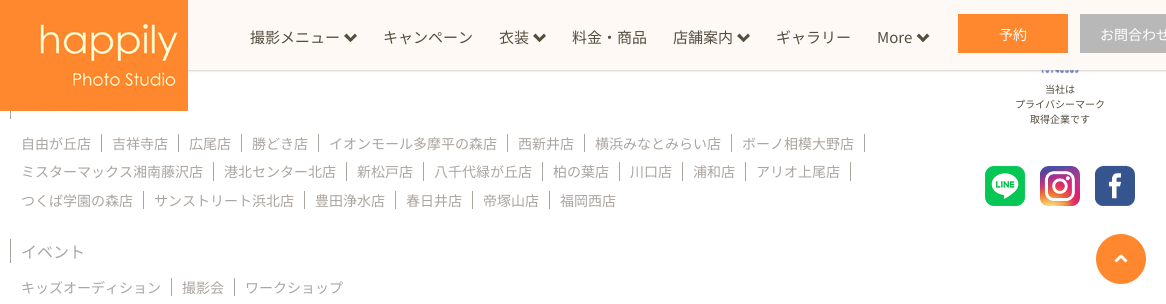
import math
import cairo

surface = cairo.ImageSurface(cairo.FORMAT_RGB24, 1166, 304)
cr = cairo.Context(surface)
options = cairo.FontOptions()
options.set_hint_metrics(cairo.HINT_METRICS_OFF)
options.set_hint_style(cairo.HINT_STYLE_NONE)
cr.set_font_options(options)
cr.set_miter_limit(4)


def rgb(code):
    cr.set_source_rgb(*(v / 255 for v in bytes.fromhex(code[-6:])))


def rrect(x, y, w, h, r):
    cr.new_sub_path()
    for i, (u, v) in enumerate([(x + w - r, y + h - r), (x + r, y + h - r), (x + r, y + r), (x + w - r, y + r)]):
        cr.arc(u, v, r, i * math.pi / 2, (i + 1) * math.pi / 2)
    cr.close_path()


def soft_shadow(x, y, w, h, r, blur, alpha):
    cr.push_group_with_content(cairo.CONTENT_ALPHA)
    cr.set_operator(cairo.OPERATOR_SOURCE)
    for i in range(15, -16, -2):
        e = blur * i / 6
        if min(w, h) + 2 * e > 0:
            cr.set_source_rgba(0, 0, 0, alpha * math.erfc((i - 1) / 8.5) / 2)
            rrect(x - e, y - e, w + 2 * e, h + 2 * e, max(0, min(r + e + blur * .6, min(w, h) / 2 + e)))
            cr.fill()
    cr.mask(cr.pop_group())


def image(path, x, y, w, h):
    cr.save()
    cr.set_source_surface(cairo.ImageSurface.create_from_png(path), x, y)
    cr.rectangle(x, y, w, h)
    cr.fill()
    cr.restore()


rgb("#ffffff")
cr.paint()
image("img/2.png", 1041, 70, 38, 4)
rgb("#aaaaaa")
soft_shadow(0, 0, 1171, 70, 0, 1.5, 1)
rgb("#fff9f5")
cr.rectangle(188, 0, 978, 70)
cr.fill()
image("img/1.png", 0, 0, 188, 111)
rgb("#544e41")
cr.new_path()
cr.move_to(357, 36)
cr.line_to(350.5, 42)
cr.line_to(348.5, 40)
cr.line_to(355, 33.5)
cr.close_path()
cr.fill()
cr.new_path()
cr.move_to(352.5, 40)
cr.line_to(350.5, 42)
cr.line_to(344, 36)
cr.line_to(346.5, 33.5)
cr.close_path()
cr.fill()
cr.new_path()
cr.move_to(546, 36)
cr.line_to(539.5, 42)
cr.line_to(537.5, 40)
cr.line_to(544, 33.5)
cr.close_path()
cr.fill()
cr.new_path()
cr.move_to(541.5, 40)
cr.line_to(539.5, 42)
cr.line_to(533, 36)
cr.line_to(535.5, 33.5)
cr.close_path()
cr.fill()
cr.new_path()
cr.move_to(750, 36)
cr.line_to(743.5, 42)
cr.line_to(741.5, 40)
cr.line_to(748, 33.5)
cr.close_path()
cr.fill()
cr.new_path()
cr.move_to(745.5, 40)
cr.line_to(743.5, 42)
cr.line_to(737, 36)
cr.line_to(739.5, 33.5)
cr.close_path()
cr.fill()
cr.new_path()
cr.move_to(929.5, 36)
cr.line_to(923, 42)
cr.line_to(921, 40)
cr.line_to(927, 33.5)
cr.close_path()
cr.fill()
cr.new_path()
cr.move_to(925, 40)
cr.line_to(923, 42)
cr.line_to(916.5, 36)
cr.line_to(919, 33.5)
cr.close_path()
cr.fill()
rgb("#ff882e")
cr.rectangle(958, 14, 110, 39)
cr.fill()
rgb("#b8b8b8")
cr.rectangle(1080, 14, 86, 39)
cr.fill()
image("img/3.png", 985, 166, 40, 40)
image("img/4.png", 1040, 166, 40, 40)
image("img/5.png", 1095, 165, 40, 41)
for x, y, w, h, color in [
    (10, 111, 1, 8, "#aba5a0"),
    (101, 134, 1, 18, "#aba5a0"),
    (178, 134, 1, 18, "#aba5a0"),
    (241, 134, 1, 18, "#aba5a0"),
    (318, 134, 1, 18, "#aba5a0"),
    (507, 134, 1, 18, "#aba5a0"),
    (584, 134, 1, 18, "#aba5a0"),
    (731, 134, 1, 18, "#aba5a0"),
    (864, 134, 1, 18, "#aba5a0"),
    (213, 162, 1, 19, "#aba5a0"),
    (346, 162, 1, 19, "#aba5a0"),
    (423, 162, 1, 19, "#aba5a0"),
    (542, 162, 1, 19, "#aba5a0"),
    (619, 162, 1, 19, "#aba5a0"),
    (682, 162, 1, 19, "#aba5a0"),
    (745, 162, 1, 19, "#aba5a0"),
    (850, 162, 1, 19, "#aba5a0"),
    (143, 191, 1, 18, "#aba5a0"),
    (304, 191, 1, 18, "#aba5a0"),
    (395, 191, 1, 18, "#aba5a0"),
    (472, 191, 1, 18, "#aba5a0"),
    (549, 191, 1, 18, "#aba5a0"),
    (10, 239, 1, 24, "#aba5a0"),
    (171, 278, 1, 18, "#aba5a0"),
    (234, 278, 1, 18, "#aba5a0"),
]:
    rgb(color)
    cr.rectangle(x, y, w, h)
    cr.fill()
rgb("#ff882e")
cr.arc(1121, 259, 25, 0, 2 * math.pi)
cr.fill()
rgb("#ffffff")
cr.new_path()
cr.move_to(1114.5, 260.5)
cr.line_to(1120.5, 254.5)
cr.line_to(1122.5, 256.5)
cr.line_to(1116.5, 262.5)
cr.close_path()
cr.fill()
cr.new_path()
cr.move_to(1121.5, 254.5)
cr.line_to(1127.5, 260.5)
cr.line_to(1125.5, 262.5)
cr.line_to(1119.5, 256.5)
cr.close_path()
cr.fill()
cr.select_font_face("Noto Sans JP")
cr.set_font_size(15)
rgb("#544e41")
for x, y, s in [
    (250, 43, "撮影メニュー"),
    (383, 43, "キャンペーン"),
    (499, 43, "衣装"),
    (572, 43, "料金・商品"),
    (673, 43, "店舗案内"),
    (776, 43, "ギャラリー"),
    (877, 43, "More"),
]:
    cr.move_to(x, y)
    cr.show_text(s)
cr.set_font_size(14)
rgb("#ffffff")
cr.move_to(999, 40)
cr.show_text("予約")
cr.move_to(1100, 40)
cr.show_text("お問合わせ")
cr.set_font_size(10)
rgb("#544e41")
for x, y, s in [
    (1045, 93, "当社は"),
    (1015, 108, "プライバシーマーク"),
    (1030, 123, "取得企業です"),
]:
    cr.move_to(x, y)
    cr.show_text(s)
cr.set_font_size(14)
rgb("#aba5a0")
for x, y, s in [
    (21, 149, "自由が丘店"),
    (112, 149, "吉祥寺店"),
    (189, 149, "広尾店"),
    (252, 149, "勝どき店"),
    (329, 149, "イオンモール多摩平の森店"),
    (518, 149, "西新井店"),
    (595, 149, "横浜みなとみらい店"),
    (742, 149, "ボーノ相模大野店"),
    (21, 177, "ミスターマックス湘南藤沢店"),
    (224, 177, "港北センター北店"),
    (357, 177, "新松戸店"),
    (434, 177, "八千代緑が丘店"),
    (553, 177, "柏の葉店"),
    (630, 177, "川口店"),
    (693, 177, "浦和店"),
    (756, 177, "アリオ上尾店"),
    (21, 206, "つくば学園の森店"),
    (154, 206, "サンストリート浜北店"),
    (315, 206, "豊田浄水店"),
    (406, 206, "春日井店"),
    (483, 206, "帝塚山店"),
    (560, 206, "福岡西店"),
]:
    cr.move_to(x, y)
    cr.show_text(s)
cr.set_font_size(16)
cr.move_to(21, 258)
cr.show_text("イベント")
cr.set_font_size(14)
for x, y, s in [
    (21, 293, "キッズオーディション"),
    (182, 293, "撮影会"),
    (245, 293, "ワークショップ"),
]:
    cr.move_to(x, y)
    cr.show_text(s)
surface.write_to_png("page.png")
